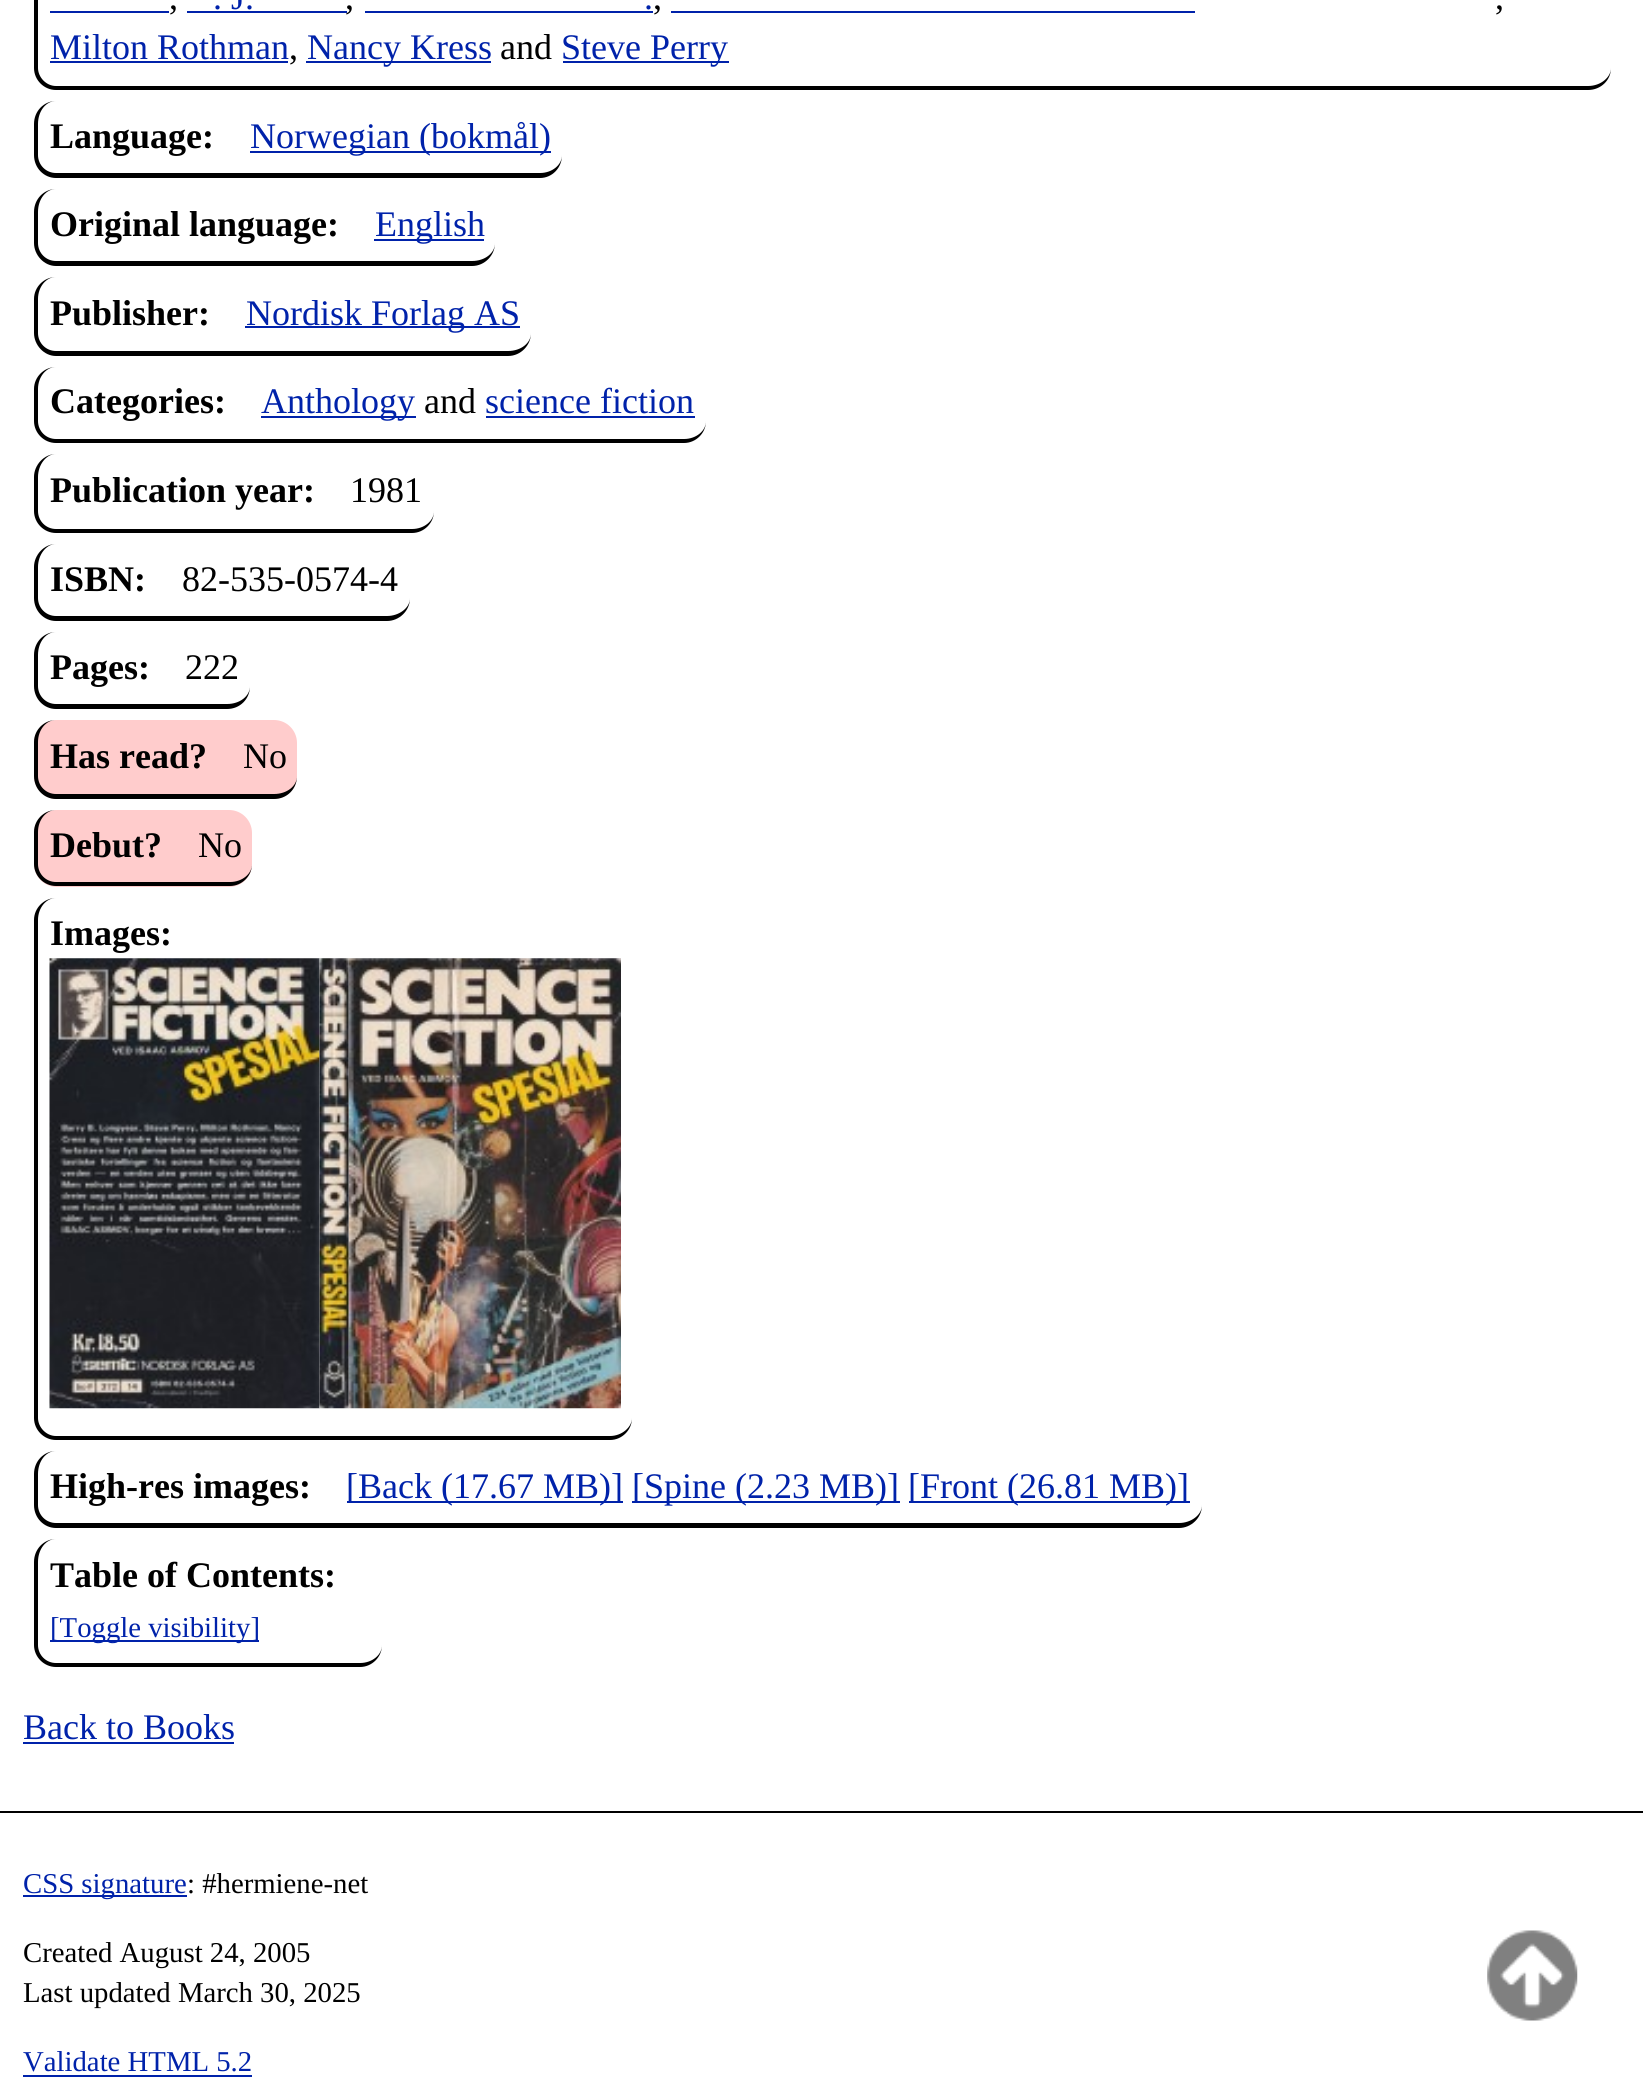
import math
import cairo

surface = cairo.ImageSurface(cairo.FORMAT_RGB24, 1643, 2086)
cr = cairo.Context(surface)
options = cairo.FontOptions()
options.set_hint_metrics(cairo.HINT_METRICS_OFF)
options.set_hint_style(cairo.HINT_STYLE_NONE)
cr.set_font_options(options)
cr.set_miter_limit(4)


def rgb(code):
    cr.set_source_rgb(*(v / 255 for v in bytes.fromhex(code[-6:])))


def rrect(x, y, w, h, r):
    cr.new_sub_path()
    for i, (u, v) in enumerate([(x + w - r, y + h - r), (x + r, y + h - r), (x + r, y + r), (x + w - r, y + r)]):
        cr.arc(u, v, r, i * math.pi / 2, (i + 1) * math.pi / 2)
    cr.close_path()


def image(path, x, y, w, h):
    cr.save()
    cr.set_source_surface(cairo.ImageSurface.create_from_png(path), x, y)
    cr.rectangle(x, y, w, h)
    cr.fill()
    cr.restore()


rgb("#ffffff")
cr.paint()
rgb("#000000")
cr.set_fill_rule(cairo.FILL_RULE_EVEN_ODD)
cr.new_path()
cr.move_to(56, -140)
cr.line_to(1588, -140)
cr.curve_to(1601, -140, 1611, -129, 1611, -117)
cr.line_to(1611, 68)
cr.curve_to(1611, 80, 1601, 90, 1588, 90)
cr.line_to(56, 90)
cr.curve_to(44, 90, 34, 80, 34, 68)
cr.line_to(34, -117)
cr.curve_to(34, -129, 44, -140, 56, -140)
cr.close_path()
cr.move_to(56, -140)
cr.line_to(1588, -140)
cr.curve_to(1601, -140, 1611, -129, 1611, -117)
cr.line_to(1611, 68)
cr.curve_to(1611, 77, 1601, 86, 1588, 86)
cr.line_to(56, 86)
cr.curve_to(46, 86, 38, 77, 38, 68)
cr.line_to(38, -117)
cr.curve_to(38, -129, 46, -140, 56, -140)
cr.close_path()
cr.fill()
for x, y, w, h, color in [
    (50, 11, 119, 2, "#0022aa"),
    (187, 11, 160, 2, "#0022aa"),
    (365, 11, 288, 2, "#0022aa"),
    (671, 11, 524, 2, "#0022aa"),
    (50, 61, 238, 2, "#0022aa"),
    (306, 61, 185, 2, "#0022aa"),
    (563, 61, 166, 2, "#0022aa"),
]:
    rgb(color)
    cr.rectangle(x, y, w, h)
    cr.fill()
rgb("#000000")
cr.new_path()
cr.move_to(56, 101)
cr.line_to(540, 101)
cr.curve_to(552, 101, 562, 111, 562, 124)
cr.line_to(562, 155)
cr.curve_to(562, 168, 552, 178, 540, 178)
cr.line_to(56, 178)
cr.curve_to(44, 178, 34, 168, 34, 155)
cr.line_to(34, 124)
cr.curve_to(34, 111, 44, 101, 56, 101)
cr.close_path()
cr.move_to(56, 101)
cr.line_to(540, 101)
cr.curve_to(552, 101, 562, 111, 562, 124)
cr.line_to(562, 155)
cr.curve_to(562, 165, 552, 173, 540, 173)
cr.line_to(56, 173)
cr.curve_to(46, 173, 38, 165, 38, 155)
cr.line_to(38, 124)
cr.curve_to(38, 111, 46, 101, 56, 101)
cr.close_path()
cr.fill()
rgb("#0022aa")
cr.rectangle(250, 151, 301, 2)
cr.fill()
rgb("#000000")
cr.new_path()
cr.move_to(56, 189)
cr.line_to(472, 189)
cr.curve_to(485, 189, 495, 199, 495, 212)
cr.line_to(495, 243)
cr.curve_to(495, 255, 485, 266, 472, 266)
cr.line_to(56, 266)
cr.curve_to(44, 266, 34, 255, 34, 243)
cr.line_to(34, 212)
cr.curve_to(34, 199, 44, 189, 56, 189)
cr.close_path()
cr.move_to(56, 189)
cr.line_to(472, 189)
cr.curve_to(485, 189, 495, 199, 495, 212)
cr.line_to(495, 243)
cr.curve_to(495, 253, 485, 261, 472, 261)
cr.line_to(56, 261)
cr.curve_to(46, 261, 38, 253, 38, 243)
cr.line_to(38, 212)
cr.curve_to(38, 199, 46, 189, 56, 189)
cr.close_path()
cr.fill()
rgb("#0022aa")
cr.rectangle(374, 239, 110, 2)
cr.fill()
rgb("#000000")
cr.new_path()
cr.move_to(56, 277)
cr.line_to(508, 277)
cr.curve_to(521, 277, 531, 287, 531, 299)
cr.line_to(531, 333)
cr.curve_to(531, 345, 521, 356, 508, 356)
cr.line_to(56, 356)
cr.curve_to(44, 356, 34, 345, 34, 333)
cr.line_to(34, 299)
cr.curve_to(34, 287, 44, 277, 56, 277)
cr.close_path()
cr.move_to(56, 277)
cr.line_to(508, 277)
cr.curve_to(521, 277, 531, 287, 531, 299)
cr.line_to(531, 333)
cr.curve_to(531, 343, 521, 351, 508, 351)
cr.line_to(56, 351)
cr.curve_to(46, 351, 38, 343, 38, 333)
cr.line_to(38, 299)
cr.curve_to(38, 287, 46, 277, 56, 277)
cr.close_path()
cr.fill()
rgb("#0022aa")
cr.rectangle(245, 326, 275, 2)
cr.fill()
rgb("#000000")
cr.new_path()
cr.move_to(56, 367)
cr.line_to(684, 367)
cr.curve_to(696, 367, 706, 377, 706, 389)
cr.line_to(706, 421)
cr.curve_to(706, 433, 696, 443, 684, 443)
cr.line_to(56, 443)
cr.curve_to(44, 443, 34, 433, 34, 421)
cr.line_to(34, 389)
cr.curve_to(34, 377, 44, 367, 56, 367)
cr.close_path()
cr.move_to(56, 367)
cr.line_to(684, 367)
cr.curve_to(696, 367, 706, 377, 706, 389)
cr.line_to(706, 421)
cr.curve_to(706, 431, 696, 439, 684, 439)
cr.line_to(56, 439)
cr.curve_to(46, 439, 38, 431, 38, 421)
cr.line_to(38, 389)
cr.curve_to(38, 377, 46, 367, 56, 367)
cr.close_path()
cr.fill()
rgb("#0022aa")
cr.rectangle(261, 416, 155, 2)
cr.fill()
cr.rectangle(486, 416, 209, 2)
cr.fill()
rgb("#000000")
cr.new_path()
cr.move_to(56, 454)
cr.line_to(412, 454)
cr.curve_to(424, 454, 434, 465, 434, 477)
cr.line_to(434, 511)
cr.curve_to(434, 523, 424, 533, 412, 533)
cr.line_to(56, 533)
cr.curve_to(44, 533, 34, 523, 34, 511)
cr.line_to(34, 477)
cr.curve_to(34, 465, 44, 454, 56, 454)
cr.close_path()
cr.move_to(56, 454)
cr.line_to(412, 454)
cr.curve_to(424, 454, 434, 465, 434, 477)
cr.line_to(434, 511)
cr.curve_to(434, 521, 424, 529, 412, 529)
cr.line_to(56, 529)
cr.curve_to(46, 529, 38, 521, 38, 511)
cr.line_to(38, 477)
cr.curve_to(38, 465, 46, 454, 56, 454)
cr.close_path()
cr.fill()
cr.new_path()
cr.move_to(56, 544)
cr.line_to(387, 544)
cr.curve_to(399, 544, 410, 555, 410, 567)
cr.line_to(410, 598)
cr.curve_to(410, 611, 399, 621, 387, 621)
cr.line_to(56, 621)
cr.curve_to(44, 621, 34, 611, 34, 598)
cr.line_to(34, 567)
cr.curve_to(34, 555, 44, 544, 56, 544)
cr.close_path()
cr.move_to(56, 544)
cr.line_to(387, 544)
cr.curve_to(399, 544, 410, 555, 410, 567)
cr.line_to(410, 598)
cr.curve_to(410, 608, 399, 616, 387, 616)
cr.line_to(56, 616)
cr.curve_to(46, 616, 38, 608, 38, 598)
cr.line_to(38, 567)
cr.curve_to(38, 555, 46, 544, 56, 544)
cr.close_path()
cr.fill()
cr.new_path()
cr.move_to(56, 632)
cr.line_to(227, 632)
cr.curve_to(240, 632, 250, 642, 250, 655)
cr.line_to(250, 686)
cr.curve_to(250, 699, 240, 709, 227, 709)
cr.line_to(56, 709)
cr.curve_to(44, 709, 34, 699, 34, 686)
cr.line_to(34, 655)
cr.curve_to(34, 642, 44, 632, 56, 632)
cr.close_path()
cr.move_to(56, 632)
cr.line_to(227, 632)
cr.curve_to(240, 632, 250, 642, 250, 655)
cr.line_to(250, 686)
cr.curve_to(250, 696, 240, 704, 227, 704)
cr.line_to(56, 704)
cr.curve_to(46, 704, 38, 696, 38, 686)
cr.line_to(38, 655)
cr.curve_to(38, 642, 46, 632, 56, 632)
cr.close_path()
cr.fill()
rgb("#ffcccc")
rrect(34, 720, 263, 79, 23)
cr.fill()
rgb("#000000")
cr.new_path()
cr.move_to(56, 720)
cr.line_to(274, 720)
cr.curve_to(287, 720, 297, 730, 297, 742)
cr.line_to(297, 776)
cr.curve_to(297, 789, 287, 799, 274, 799)
cr.line_to(56, 799)
cr.curve_to(44, 799, 34, 789, 34, 776)
cr.line_to(34, 742)
cr.curve_to(34, 730, 44, 720, 56, 720)
cr.close_path()
cr.move_to(56, 720)
cr.line_to(274, 720)
cr.curve_to(287, 720, 297, 730, 297, 742)
cr.line_to(297, 776)
cr.curve_to(297, 786, 287, 794, 274, 794)
cr.line_to(56, 794)
cr.curve_to(46, 794, 38, 786, 38, 776)
cr.line_to(38, 742)
cr.curve_to(38, 730, 46, 720, 56, 720)
cr.close_path()
cr.fill()
rgb("#ffcccc")
rrect(34, 810, 218, 77, 23)
cr.fill()
rgb("#000000")
cr.new_path()
cr.move_to(56, 810)
cr.line_to(230, 810)
cr.curve_to(242, 810, 252, 820, 252, 832)
cr.line_to(252, 864)
cr.curve_to(252, 876, 242, 886, 230, 886)
cr.line_to(56, 886)
cr.curve_to(44, 886, 34, 876, 34, 864)
cr.line_to(34, 832)
cr.curve_to(34, 820, 44, 810, 56, 810)
cr.close_path()
cr.move_to(56, 810)
cr.line_to(230, 810)
cr.curve_to(242, 810, 252, 820, 252, 832)
cr.line_to(252, 864)
cr.curve_to(252, 874, 242, 882, 230, 882)
cr.line_to(56, 882)
cr.curve_to(46, 882, 38, 874, 38, 864)
cr.line_to(38, 832)
cr.curve_to(38, 820, 46, 810, 56, 810)
cr.close_path()
cr.fill()
cr.new_path()
cr.move_to(56, 898)
cr.line_to(610, 898)
cr.curve_to(622, 898, 632, 908, 632, 920)
cr.line_to(632, 1418)
cr.curve_to(632, 1430, 622, 1440, 610, 1440)
cr.line_to(56, 1440)
cr.curve_to(44, 1440, 34, 1430, 34, 1418)
cr.line_to(34, 920)
cr.curve_to(34, 908, 44, 898, 56, 898)
cr.close_path()
cr.move_to(56, 898)
cr.line_to(610, 898)
cr.curve_to(622, 898, 632, 908, 632, 920)
cr.line_to(632, 1418)
cr.curve_to(632, 1427, 622, 1436, 610, 1436)
cr.line_to(56, 1436)
cr.curve_to(46, 1436, 38, 1427, 38, 1418)
cr.line_to(38, 920)
cr.curve_to(38, 908, 46, 898, 56, 898)
cr.close_path()
cr.fill()
image("img/1.png", 49, 958, 271, 451)
image("img/2.png", 319, 958, 30, 451)
image("img/3.png", 348, 958, 273, 451)
cr.new_path()
cr.move_to(56, 1451)
cr.line_to(1179, 1451)
cr.curve_to(1191, 1451, 1202, 1461, 1202, 1474)
cr.line_to(1202, 1505)
cr.curve_to(1202, 1518, 1191, 1528, 1179, 1528)
cr.line_to(56, 1528)
cr.curve_to(44, 1528, 34, 1518, 34, 1505)
cr.line_to(34, 1474)
cr.curve_to(34, 1461, 44, 1451, 56, 1451)
cr.close_path()
cr.move_to(56, 1451)
cr.line_to(1179, 1451)
cr.curve_to(1191, 1451, 1202, 1461, 1202, 1474)
cr.line_to(1202, 1505)
cr.curve_to(1202, 1515, 1191, 1523, 1179, 1523)
cr.line_to(56, 1523)
cr.curve_to(46, 1523, 38, 1515, 38, 1505)
cr.line_to(38, 1474)
cr.curve_to(38, 1461, 46, 1451, 56, 1451)
cr.close_path()
cr.fill()
for x, y, w, h, color in [
    (347, 1501, 276, 2, "#0022aa"),
    (632, 1501, 268, 2, "#0022aa"),
    (909, 1501, 281, 2, "#0022aa"),
]:
    rgb(color)
    cr.rectangle(x, y, w, h)
    cr.fill()
rgb("#000000")
cr.new_path()
cr.move_to(56, 1539)
cr.line_to(360, 1539)
cr.curve_to(372, 1539, 382, 1549, 382, 1562)
cr.line_to(382, 1645)
cr.curve_to(382, 1657, 372, 1667, 360, 1667)
cr.line_to(56, 1667)
cr.curve_to(44, 1667, 34, 1657, 34, 1645)
cr.line_to(34, 1562)
cr.curve_to(34, 1549, 44, 1539, 56, 1539)
cr.close_path()
cr.move_to(56, 1539)
cr.line_to(360, 1539)
cr.curve_to(372, 1539, 382, 1549, 382, 1562)
cr.line_to(382, 1645)
cr.curve_to(382, 1655, 372, 1663, 360, 1663)
cr.line_to(56, 1663)
cr.curve_to(46, 1663, 38, 1655, 38, 1645)
cr.line_to(38, 1562)
cr.curve_to(38, 1549, 46, 1539, 56, 1539)
cr.close_path()
cr.fill()
for x, y, w, h, color in [
    (50, 1640, 209, 2, "#0022aa"),
    (23, 1742, 211, 2, "#0022aa"),
    (0, 1811, 1643, 2, "#000000"),
    (23, 1895, 164, 2, "#0022aa"),
    (23, 2075, 229, 2, "#0022aa"),
]:
    rgb(color)
    cr.rectangle(x, y, w, h)
    cr.fill()
image("img/4.png", 1487, 1930, 91, 91)
cr.select_font_face("Liberation Serif")
cr.set_font_size(36)
rgb("#000000")
cr.move_to(169, 9)
cr.show_text(",")
rgb("#0022aa")
cr.move_to(213, 9)
cr.show_text(". J.")
rgb("#000000")
cr.move_to(345, 9)
cr.show_text(",")
rgb("#0022aa")
cr.move_to(644, 9)
cr.show_text(".")
rgb("#000000")
cr.move_to(653, 9)
cr.show_text(",")
cr.move_to(1495, 9)
cr.show_text(",")
rgb("#0022aa")
cr.move_to(50, 59)
cr.show_text("Milton Rothman")
rgb("#000000")
cr.move_to(289, 59)
cr.show_text(",")
rgb("#0022aa")
cr.move_to(307, 59)
cr.show_text("Nancy Kress")
rgb("#000000")
cr.move_to(500, 59)
cr.show_text("and")
rgb("#0022aa")
cr.move_to(561, 59)
cr.show_text("Steve Perry")
cr.select_font_face("Liberation Serif", cairo.FONT_SLANT_NORMAL, cairo.FONT_WEIGHT_BOLD)
rgb("#000000")
cr.move_to(50, 148)
cr.show_text("Language:")
cr.select_font_face("Liberation Serif")
rgb("#0022aa")
cr.move_to(250, 148)
cr.show_text("Norwegian (bokmål)")
cr.select_font_face("Liberation Serif", cairo.FONT_SLANT_NORMAL, cairo.FONT_WEIGHT_BOLD)
rgb("#000000")
cr.move_to(50, 236)
cr.show_text("Original language:")
cr.select_font_face("Liberation Serif")
rgb("#0022aa")
cr.move_to(375, 236)
cr.show_text("English")
cr.select_font_face("Liberation Serif", cairo.FONT_SLANT_NORMAL, cairo.FONT_WEIGHT_BOLD)
rgb("#000000")
cr.move_to(50, 325)
cr.show_text("Publisher:")
cr.select_font_face("Liberation Serif")
rgb("#0022aa")
cr.move_to(246, 325)
cr.show_text("Nordisk Forlag AS")
cr.select_font_face("Liberation Serif", cairo.FONT_SLANT_NORMAL, cairo.FONT_WEIGHT_BOLD)
rgb("#000000")
cr.move_to(50, 413)
cr.show_text("Categories:")
cr.select_font_face("Liberation Serif")
rgb("#0022aa")
cr.move_to(261, 413)
cr.show_text("Anthology")
rgb("#000000")
cr.move_to(424, 413)
cr.show_text("and")
rgb("#0022aa")
cr.move_to(485, 413)
cr.show_text("science fiction")
cr.select_font_face("Liberation Serif", cairo.FONT_SLANT_NORMAL, cairo.FONT_WEIGHT_BOLD)
rgb("#000000")
cr.move_to(50, 502)
cr.show_text("Publication year:")
cr.select_font_face("Liberation Serif")
cr.move_to(350, 502)
cr.show_text("1981")
cr.select_font_face("Liberation Serif", cairo.FONT_SLANT_NORMAL, cairo.FONT_WEIGHT_BOLD)
cr.move_to(50, 591)
cr.show_text("ISBN:")
cr.select_font_face("Liberation Serif")
cr.move_to(182, 591)
cr.show_text("82-535-0574-4")
cr.select_font_face("Liberation Serif", cairo.FONT_SLANT_NORMAL, cairo.FONT_WEIGHT_BOLD)
cr.move_to(50, 679)
cr.show_text("Pages:")
cr.select_font_face("Liberation Serif")
cr.move_to(185, 679)
cr.show_text("222")
cr.select_font_face("Liberation Serif", cairo.FONT_SLANT_NORMAL, cairo.FONT_WEIGHT_BOLD)
cr.move_to(50, 768)
cr.show_text("Has read?")
cr.select_font_face("Liberation Serif")
cr.move_to(243, 768)
cr.show_text("No")
cr.select_font_face("Liberation Serif", cairo.FONT_SLANT_NORMAL, cairo.FONT_WEIGHT_BOLD)
cr.move_to(50, 857)
cr.show_text("Debut?")
cr.select_font_face("Liberation Serif")
cr.move_to(198, 857)
cr.show_text("No")
cr.select_font_face("Liberation Serif", cairo.FONT_SLANT_NORMAL, cairo.FONT_WEIGHT_BOLD)
cr.move_to(50, 945)
cr.show_text("Images:")
cr.move_to(50, 1498)
cr.show_text("High-res images:")
cr.select_font_face("Liberation Serif")
rgb("#0022aa")
for x, y, s in [
    (346, 1498, "[Back (17.67 MB)]"),
    (632, 1498, "[Spine (2.23 MB)]"),
    (908, 1498, "[Front (26.81 MB)]"),
]:
    cr.move_to(x, y)
    cr.show_text(s)
cr.select_font_face("Liberation Serif", cairo.FONT_SLANT_NORMAL, cairo.FONT_WEIGHT_BOLD)
rgb("#000000")
cr.move_to(50, 1587)
cr.show_text("Table of Contents:")
cr.select_font_face("Liberation Serif")
cr.set_font_size(28.75)
rgb("#0022aa")
cr.move_to(50, 1637)
cr.show_text("[Toggle visibility]")
cr.set_font_size(36)
cr.move_to(23, 1739)
cr.show_text("Back to Books")
cr.set_font_size(28.75)
cr.move_to(23, 1893)
cr.show_text("CSS signature")
rgb("#000000")
for x, y, s in [
    (187, 1893, ": #hermiene-net"),
    (23, 1962, "Created August 24, 2005"),
    (23, 2002, "Last updated March 30, 2025"),
]:
    cr.move_to(x, y)
    cr.show_text(s)
rgb("#0022aa")
cr.move_to(23, 2071)
cr.show_text("Validate HTML 5.2")
surface.write_to_png("page.png")
